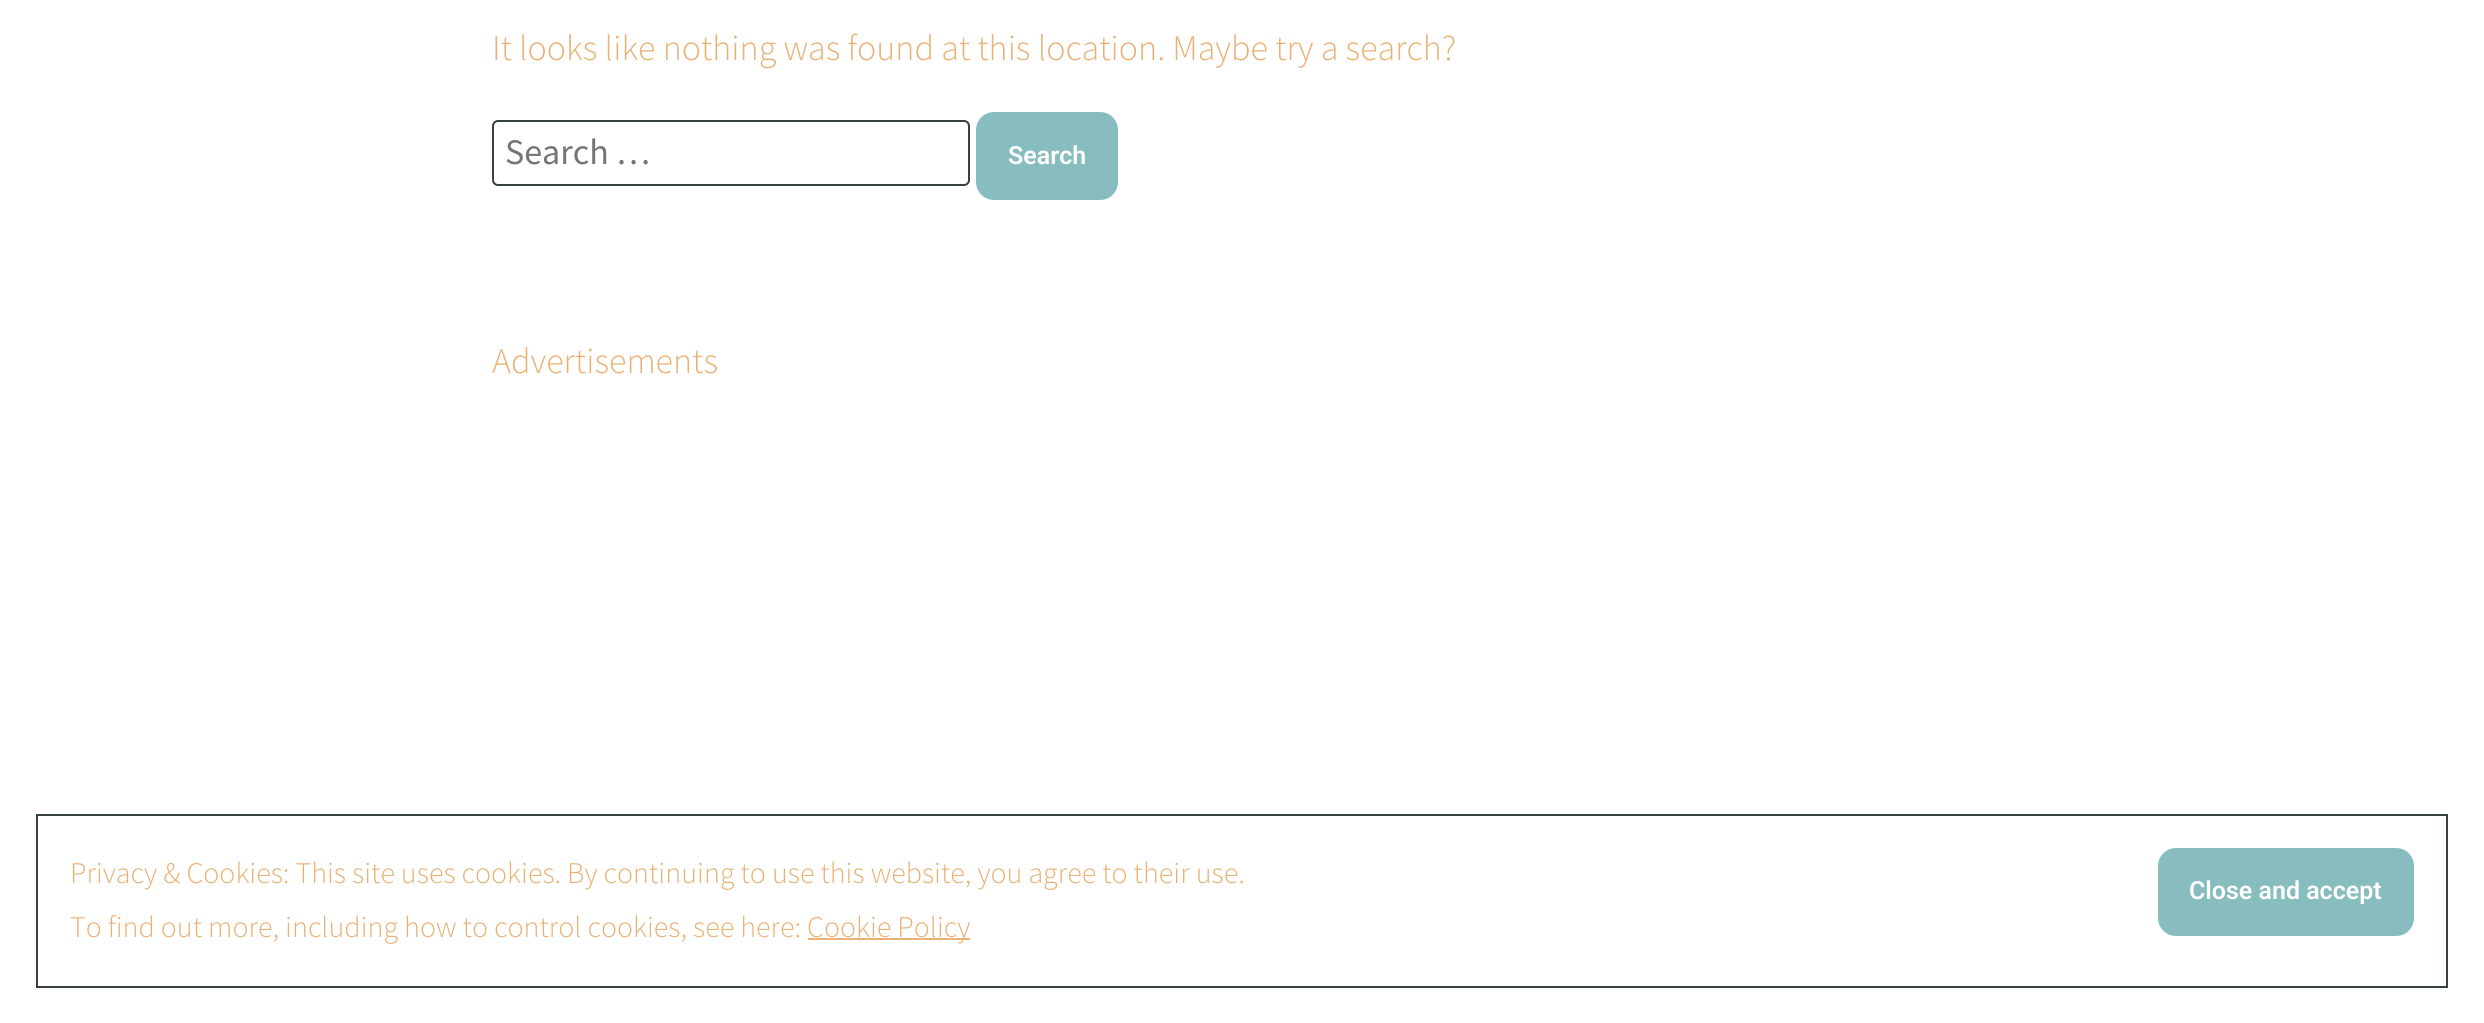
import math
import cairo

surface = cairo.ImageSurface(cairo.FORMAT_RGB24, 2484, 1023)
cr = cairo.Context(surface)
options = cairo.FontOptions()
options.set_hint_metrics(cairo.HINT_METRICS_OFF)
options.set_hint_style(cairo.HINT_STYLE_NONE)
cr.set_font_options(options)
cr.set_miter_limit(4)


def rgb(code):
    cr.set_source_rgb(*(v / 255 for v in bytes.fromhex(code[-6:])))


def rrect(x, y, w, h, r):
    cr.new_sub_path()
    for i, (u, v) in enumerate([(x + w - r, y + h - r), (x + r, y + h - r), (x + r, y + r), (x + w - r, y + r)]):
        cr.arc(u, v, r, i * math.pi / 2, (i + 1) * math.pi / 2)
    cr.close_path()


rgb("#ffffff")
cr.paint()
rrect(493, 121, 476, 64, 5)
rgb("#364043")
cr.stroke()
rgb("#87bdbe")
rrect(976, 112, 142, 88, 18)
cr.fill()
cr.rectangle(37, 815, 2410, 172)
rgb("#364043")
cr.stroke()
rgb("#87bdbe")
rrect(2158, 848, 256, 88, 18)
cr.fill()
rgb("#eab175")
cr.rectangle(808, 938, 162, 2)
cr.fill()
cr.select_font_face("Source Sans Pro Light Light")
cr.set_font_size(36)
cr.move_to(492, 60)
cr.show_text("It looks like nothing was found at this location. Maybe try a search?")
cr.select_font_face("Source Sans Pro")
rgb("#757575")
cr.move_to(505, 164)
cr.show_text("Search …")
cr.select_font_face("Roboto SemiBold")
cr.set_font_size(25)
rgb("#ffffff")
cr.move_to(1008, 164)
cr.show_text("Search")
cr.select_font_face("Source Sans Pro Light Light")
cr.set_font_size(36)
rgb("#eab175")
cr.move_to(492, 373)
cr.show_text("Advertisements")
cr.set_font_size(30)
cr.move_to(70, 883)
cr.show_text("Privacy & Cookies: This site uses cookies. By continuing to use this website, you agree to their use.")
cr.select_font_face("Roboto SemiBold")
cr.set_font_size(25)
rgb("#ffffff")
cr.move_to(2189, 899)
cr.show_text("Close and accept")
cr.select_font_face("Source Sans Pro Light Light")
cr.set_font_size(30)
rgb("#eab175")
cr.move_to(70, 937)
cr.show_text("To find out more, including how to control cookies, see here:")
cr.move_to(807, 937)
cr.show_text("Cookie Policy")
surface.write_to_png("page.png")
